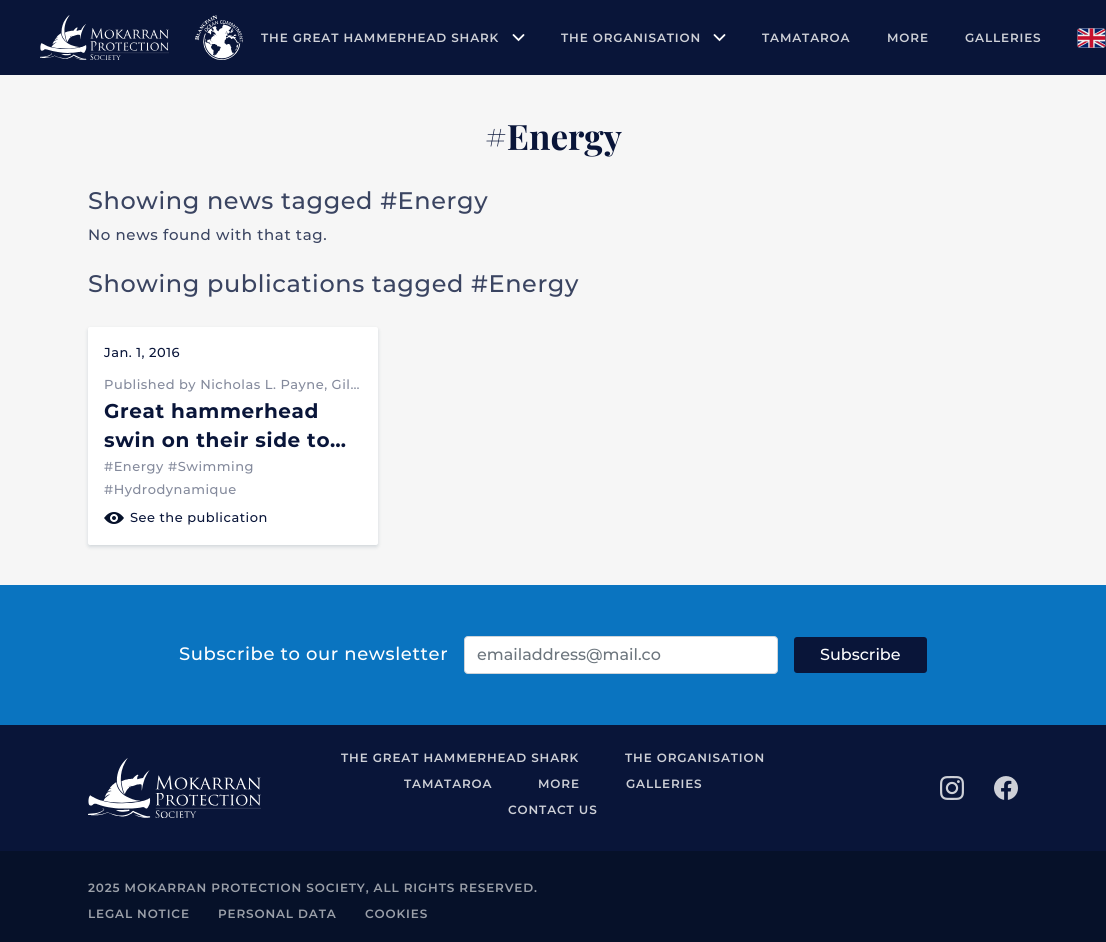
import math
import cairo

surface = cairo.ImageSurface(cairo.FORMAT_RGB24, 1106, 942)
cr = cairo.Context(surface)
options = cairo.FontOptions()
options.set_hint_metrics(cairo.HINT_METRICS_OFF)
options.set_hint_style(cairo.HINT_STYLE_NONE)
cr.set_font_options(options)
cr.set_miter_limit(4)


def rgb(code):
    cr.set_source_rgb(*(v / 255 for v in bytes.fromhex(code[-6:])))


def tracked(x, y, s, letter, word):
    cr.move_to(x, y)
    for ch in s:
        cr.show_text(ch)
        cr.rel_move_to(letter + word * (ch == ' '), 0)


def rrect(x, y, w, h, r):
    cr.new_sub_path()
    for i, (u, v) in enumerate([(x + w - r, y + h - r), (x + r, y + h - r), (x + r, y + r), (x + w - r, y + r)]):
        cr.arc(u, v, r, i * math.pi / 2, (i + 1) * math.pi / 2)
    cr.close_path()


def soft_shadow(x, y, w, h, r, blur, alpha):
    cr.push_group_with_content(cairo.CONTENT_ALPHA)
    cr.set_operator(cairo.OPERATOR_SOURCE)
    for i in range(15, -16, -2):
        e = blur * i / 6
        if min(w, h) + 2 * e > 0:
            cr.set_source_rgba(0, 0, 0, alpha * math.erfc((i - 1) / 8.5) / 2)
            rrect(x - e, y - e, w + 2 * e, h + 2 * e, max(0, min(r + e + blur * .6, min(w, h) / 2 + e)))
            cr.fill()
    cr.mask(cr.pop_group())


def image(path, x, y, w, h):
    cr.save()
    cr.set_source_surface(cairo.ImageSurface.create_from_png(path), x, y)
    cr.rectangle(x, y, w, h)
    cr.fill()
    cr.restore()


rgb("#f6f6f6")
cr.paint()
rgb("#091539")
cr.rectangle(0, 0, 1106, 75)
cr.fill()
image("img/1.png", 40, 15, 129, 45)
image("img/2.png", 195, 15, 48, 45)
cr.new_path()
cr.move_to(523.5, 35)
cr.line_to(518.5, 40)
cr.line_to(513.5, 35)
rgb("#ffffff")
cr.set_line_width(1.8)
cr.set_line_cap(cairo.LINE_CAP_ROUND)
cr.stroke()
cr.new_path()
cr.move_to(724.5, 35)
cr.line_to(719.5, 40)
cr.line_to(714.5, 35)
cr.stroke()
image("img/3.png", 1077, 28, 29, 20)
rgb("#00263e")
soft_shadow(88, 329, 290, 218, 2, 2, 0.15)
rgb("#ffffff")
rrect(88, 327, 290, 218, 2)
cr.fill()
image("img/4.png", 104, 512, 20, 12)
rgb("#0a74c0")
cr.rectangle(0, 585, 1106, 140)
cr.fill()
rgb("#ffffff")
rrect(464.5, 636.5, 313, 37, 3.5)
cr.fill_preserve()
rgb("#ced4da")
cr.set_line_width(1)
cr.set_line_cap(cairo.LINE_CAP_BUTT)
cr.stroke()
rgb("#091539")
rrect(794, 637, 133, 36, 3)
cr.fill()
cr.rectangle(0, 725, 1106, 126)
cr.fill()
image("img/5.png", 88, 758, 173, 60)
image("img/6.png", 940, 776, 24, 24)
image("img/7.png", 994, 776, 24, 24)
rgb("#061129")
cr.rectangle(0, 851, 1106, 91)
cr.fill()
cr.select_font_face("Montserrat SemiBold")
cr.set_font_size(12)
rgb("#ced0d7")
for x, y, s in [
    (261, 42, "THE GREAT HAMMERHEAD SHARK"),
    (561, 42, "THE ORGANISATION"),
    (762, 42, "TAMATAROA"),
    (887, 42, "MORE"),
    (965, 42, "GALLERIES"),
]:
    tracked(x, y, s, 0.85, 0)
cr.select_font_face("Playfair Display", cairo.FONT_SLANT_NORMAL, cairo.FONT_WEIGHT_BOLD)
cr.set_font_size(35)
rgb("#091539")
cr.move_to(485, 150)
cr.show_text("#Energy")
cr.select_font_face("Montserrat Medium")
cr.set_font_size(24)
rgb("#3a4461")
tracked(88, 209, "Showing news tagged #Energy", 0.6, 0)
cr.set_font_size(15)
tracked(88, 240, "No news found with that tag.", 0.6, 0)
cr.set_font_size(24)
tracked(88, 292, "Showing publications tagged #Energy", 0.6, 0)
cr.set_font_size(13)
rgb("#091539")
tracked(104, 357, "Jan. 1, 2016", 0.5, 0)
rgb("#848a9c")
tracked(104, 389, "Published by Nicholas L. Payne, Gil…", 0.5, 0)
cr.select_font_face("Montserrat", cairo.FONT_SLANT_NORMAL, cairo.FONT_WEIGHT_BOLD)
cr.set_font_size(20)
rgb("#091539")
tracked(104, 418, "Great hammerhead", 0.6, 0)
tracked(104, 447, "swin on their side to…", 0.6, 0)
cr.select_font_face("Montserrat Medium")
cr.set_font_size(13)
rgb("#848a9c")
for x, y, s in [
    (104, 471, "#Energy"),
    (168, 471, "#Swimming"),
    (104, 494, "#Hydrodynamique"),
]:
    tracked(x, y, s, 0.5, 0)
rgb("#091539")
tracked(130, 522, "See the publication", 0.5, 0)
cr.set_font_size(18)
rgb("#ffffff")
tracked(179, 660, "Subscribe to our newsletter", 0.6, 0)
cr.set_font_size(16)
rgb("#6c757d")
cr.move_to(477, 660)
cr.show_text("emailaddress@mail.co")
rgb("#ffffff")
cr.move_to(820, 660)
cr.show_text("Subscribe")
cr.select_font_face("Montserrat SemiBold")
cr.set_font_size(12)
rgb("#ced0d7")
for x, y, s in [
    (341, 762, "THE GREAT HAMMERHEAD SHARK"),
    (625, 762, "THE ORGANISATION"),
    (404, 788, "TAMATAROA"),
    (538, 788, "MORE"),
    (626, 788, "GALLERIES"),
    (508, 814, "CONTACT US"),
]:
    tracked(x, y, s, 0.85, 0)
rgb("#9ba0a9")
for x, y, s in [
    (88, 892, "2025 MOKARRAN PROTECTION SOCIETY, ALL RIGHTS RESERVED."),
    (88, 918, "LEGAL NOTICE"),
    (218, 918, "PERSONAL DATA"),
    (365, 918, "COOKIES"),
]:
    tracked(x, y, s, 0.85, 0)
surface.write_to_png("page.png")
